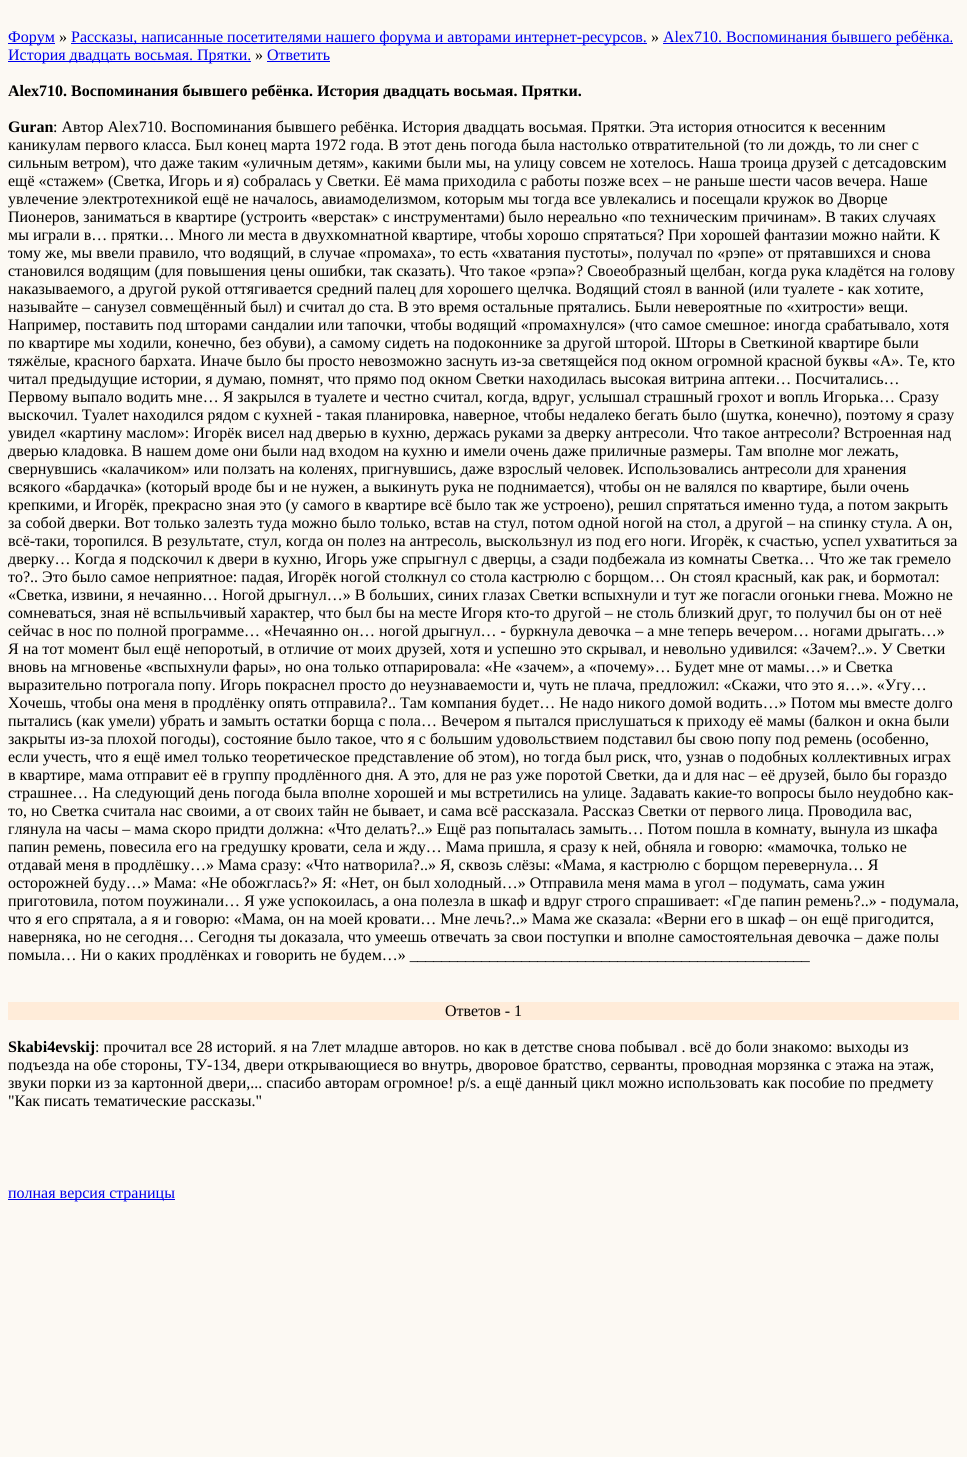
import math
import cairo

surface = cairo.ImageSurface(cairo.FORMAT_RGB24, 967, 1457)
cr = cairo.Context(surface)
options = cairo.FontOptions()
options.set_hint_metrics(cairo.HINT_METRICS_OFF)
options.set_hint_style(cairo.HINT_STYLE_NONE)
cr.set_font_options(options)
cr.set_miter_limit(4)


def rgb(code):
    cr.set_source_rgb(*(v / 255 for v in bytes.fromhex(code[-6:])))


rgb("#fcf9f3")
cr.paint()
for x, y, w, h, color in [
    (8, 43, 47, 1, "#0000ee"),
    (71, 43, 576, 1, "#0000ee"),
    (663, 43, 290, 1, "#0000ee"),
    (8, 61, 243, 1, "#0000ee"),
    (267, 61, 63, 1, "#0000ee"),
    (8, 1002, 951, 18, "#ffecd9"),
    (8, 1199, 167, 1, "#0000ee"),
]:
    rgb(color)
    cr.rectangle(x, y, w, h)
    cr.fill()
cr.select_font_face("Liberation Serif")
cr.set_font_size(16)
cr.move_to(8, 42)
cr.show_text("Форум")
rgb("#000000")
cr.move_to(59, 42)
cr.show_text("»")
rgb("#0000ee")
cr.move_to(71, 42)
cr.show_text("Рассказы, написанные посетителями нашего форума и авторами интернет-ресурсов.")
rgb("#000000")
cr.move_to(651, 42)
cr.show_text("»")
rgb("#0000ee")
cr.move_to(663, 42)
cr.show_text("Alex710. Воспоминания бывшего ребёнка.")
cr.move_to(8, 60)
cr.show_text("История двадцать восьмая. Прятки.")
rgb("#000000")
cr.move_to(255, 60)
cr.show_text("»")
rgb("#0000ee")
cr.move_to(267, 60)
cr.show_text("Ответить")
cr.select_font_face("Liberation Serif", cairo.FONT_SLANT_NORMAL, cairo.FONT_WEIGHT_BOLD)
rgb("#000000")
cr.move_to(8, 96)
cr.show_text("Alex710. Воспоминания бывшего ребёнка. История двадцать восьмая. Прятки.")
cr.move_to(8, 132)
cr.show_text("Guran")
cr.select_font_face("Liberation Serif")
for x, y, s in [
    (53, 132, ": Автор Alex710. Воспоминания бывшего ребёнка. История двадцать восьмая. Прятки. Эта история относится к весенним"),
    (8, 150, "каникулам первого класса. Был конец марта 1972 года. В этот день погода была настолько отвратительной (то ли дождь, то ли снег с"),
    (8, 168, "сильным ветром), что даже таким «уличным детям», какими были мы, на улицу совсем не хотелось. Наша троица друзей с детсадовским"),
    (8, 186, "ещё «стажем» (Светка, Игорь и я) собралась у Светки. Её мама приходила с работы позже всех – не раньше шести часов вечера. Наше"),
    (8, 204, "увлечение электротехникой ещё не началось, авиамоделизмом, которым мы тогда все увлекались и посещали кружок во Дворце"),
    (8, 222, "Пионеров, заниматься в квартире (устроить «верстак» с инструментами) было нереально «по техническим причинам». В таких случаях"),
    (8, 240, "мы играли в… прятки… Много ли места в двухкомнатной квартире, чтобы хорошо спрятаться? При хорошей фантазии можно найти. К"),
    (8, 258, "тому же, мы ввели правило, что водящий, в случае «промаха», то есть «хватания пустоты», получал по «рэпе» от прятавшихся и снова"),
    (8, 276, "становился водящим (для повышения цены ошибки, так сказать). Что такое «рэпа»? Своеобразный щелбан, когда рука кладётся на голову"),
    (8, 294, "наказываемого, а другой рукой оттягивается средний палец для хорошего щелчка. Водящий стоял в ванной (или туалете - как хотите,"),
    (8, 312, "называйте – санузел совмещённый был) и считал до ста. В это время остальные прятались. Были невероятные по «хитрости» вещи."),
    (8, 330, "Например, поставить под шторами сандалии или тапочки, чтобы водящий «промахнулся» (что самое смешное: иногда срабатывало, хотя"),
    (8, 348, "по квартире мы ходили, конечно, без обуви), а самому сидеть на подоконнике за другой шторой. Шторы в Светкиной квартире были"),
    (8, 366, "тяжёлые, красного бархата. Иначе было бы просто невозможно заснуть из-за светящейся под окном огромной красной буквы «А». Те, кто"),
    (8, 384, "читал предыдущие истории, я думаю, помнят, что прямо под окном Светки находилась высокая витрина аптеки… Посчитались…"),
    (8, 402, "Первому выпало водить мне… Я закрылся в туалете и честно считал, когда, вдруг, услышал страшный грохот и вопль Игорька… Сразу"),
    (8, 420, "выскочил. Туалет находился рядом с кухней - такая планировка, наверное, чтобы недалеко бегать было (шутка, конечно), поэтому я сразу"),
    (8, 438, "увидел «картину маслом»: Игорёк висел над дверью в кухню, держась руками за дверку антресоли. Что такое антресоли? Встроенная над"),
    (8, 456, "дверью кладовка. В нашем доме они были над входом на кухню и имели очень даже приличные размеры. Там вполне мог лежать,"),
    (8, 474, "свернувшись «калачиком» или ползать на коленях, пригнувшись, даже взрослый человек. Использовались антресоли для хранения"),
    (8, 492, "всякого «бардачка» (который вроде бы и не нужен, а выкинуть рука не поднимается), чтобы он не валялся по квартире, были очень"),
    (8, 510, "крепкими, и Игорёк, прекрасно зная это (у самого в квартире всё было так же устроено), решил спрятаться именно туда, а потом закрыть"),
    (8, 528, "за собой дверки. Вот только залезть туда можно было только, встав на стул, потом одной ногой на стол, а другой – на спинку стула. А он,"),
    (8, 546, "всё-таки, торопился. В результате, стул, когда он полез на антресоль, выскользнул из под его ноги. Игорёк, к счастью, успел ухватиться за"),
    (8, 564, "дверку… Когда я подскочил к двери в кухню, Игорь уже спрыгнул с дверцы, а сзади подбежала из комнаты Светка… Что же так гремело"),
    (8, 582, "то?.. Это было самое неприятное: падая, Игорёк ногой столкнул со стола кастрюлю с борщом… Он стоял красный, как рак, и бормотал:"),
    (8, 600, "«Светка, извини, я нечаянно… Ногой дрыгнул…» В больших, синих глазах Светки вспыхнули и тут же погасли огоньки гнева. Можно не"),
    (8, 618, "сомневаться, зная нё вспыльчивый характер, что был бы на месте Игоря кто-то другой – не столь близкий друг, то получил бы он от неё"),
    (8, 636, "сейчас в нос по полной программе… «Нечаянно он… ногой дрыгнул… - буркнула девочка – а мне теперь вечером… ногами дрыгать…»"),
    (8, 654, "Я на тот момент был ещё непоротый, в отличие от моих друзей, хотя и успешно это скрывал, и невольно удивился: «Зачем?..». У Светки"),
    (8, 672, "вновь на мгновенье «вспыхнули фары», но она только отпарировала: «Не «зачем», а «почему»… Будет мне от мамы…» и Светка"),
    (8, 690, "выразительно потрогала попу. Игорь покраснел просто до неузнаваемости и, чуть не плача, предложил: «Скажи, что это я…». «Угу…"),
    (8, 708, "Хочешь, чтобы она меня в продлёнку опять отправила?.. Там компания будет… Не надо никого домой водить…» Потом мы вместе долго"),
    (8, 726, "пытались (как умели) убрать и замыть остатки борща с пола… Вечером я пытался прислушаться к приходу её мамы (балкон и окна были"),
    (8, 744, "закрыты из-за плохой погоды), состояние было такое, что я с большим удовольствием подставил бы свою попу под ремень (особенно,"),
    (8, 762, "если учесть, что я ещё имел только теоретическое представление об этом), но тогда был риск, что, узнав о подобных коллективных играх"),
    (8, 780, "в квартире, мама отправит её в группу продлённого дня. А это, для не раз уже поротой Светки, да и для нас – её друзей, было бы гораздо"),
    (8, 798, "страшнее… На следующий день погода была вполне хорошей и мы встретились на улице. Задавать какие-то вопросы было неудобно как-"),
    (8, 816, "то, но Светка считала нас своими, а от своих тайн не бывает, и сама всё рассказала. Рассказ Светки от первого лица. Проводила вас,"),
    (8, 834, "глянула на часы – мама скоро придти должна: «Что делать?..» Ещё раз попыталась замыть… Потом пошла в комнату, вынула из шкафа"),
    (8, 852, "папин ремень, повесила его на гредушку кровати, села и жду… Мама пришла, я сразу к ней, обняла и говорю: «мамочка, только не"),
    (8, 870, "отдавай меня в продлёшку…» Мама сразу: «Что натворила?..» Я, сквозь слёзы: «Мама, я кастрюлю с борщом перевернула… Я"),
    (8, 888, "осторожней буду…» Мама: «Не обожглась?» Я: «Нет, он был холодный…» Отправила меня мама в угол – подумать, сама ужин"),
    (8, 906, "приготовила, потом поужинали… Я уже успокоилась, а она полезла в шкаф и вдруг строго спрашивает: «Где папин ремень?..» - подумала,"),
    (8, 924, "что я его спрятала, а я и говорю: «Мама, он на моей кровати… Мне лечь?..» Мама же сказала: «Верни его в шкаф – он ещё пригодится,"),
    (8, 942, "наверняка, но не сегодня… Сегодня ты доказала, что умеешь отвечать за свои поступки и вполне самостоятельная девочка – даже полы"),
    (8, 960, "помыла… Ни о каких продлёнках и говорить не будем…» __________________________________________________"),
    (445, 1016, "Ответов - 1"),
]:
    cr.move_to(x, y)
    cr.show_text(s)
cr.select_font_face("Liberation Serif", cairo.FONT_SLANT_NORMAL, cairo.FONT_WEIGHT_BOLD)
cr.move_to(8, 1052)
cr.show_text("Skabi4evskij")
cr.select_font_face("Liberation Serif")
for x, y, s in [
    (95, 1052, ": прочитал все 28 историй. я на 7лет младше авторов. но как в детстве снова побывал . всё до боли знакомо: выходы из"),
    (8, 1070, "подъезда на обе стороны, ТУ-134, двери открывающиеся во внутрь, дворовое братство, серванты, проводная морзянка с этажа на этаж,"),
    (8, 1088, "звуки порки из за картонной двери,... спасибо авторам огромное! p/s. а ещё данный цикл можно использовать как пособие по предмету"),
    (8, 1106, "\"Как писать тематические рассказы.\""),
]:
    cr.move_to(x, y)
    cr.show_text(s)
rgb("#0000ee")
cr.move_to(8, 1198)
cr.show_text("полная версия страницы")
surface.write_to_png("page.png")
